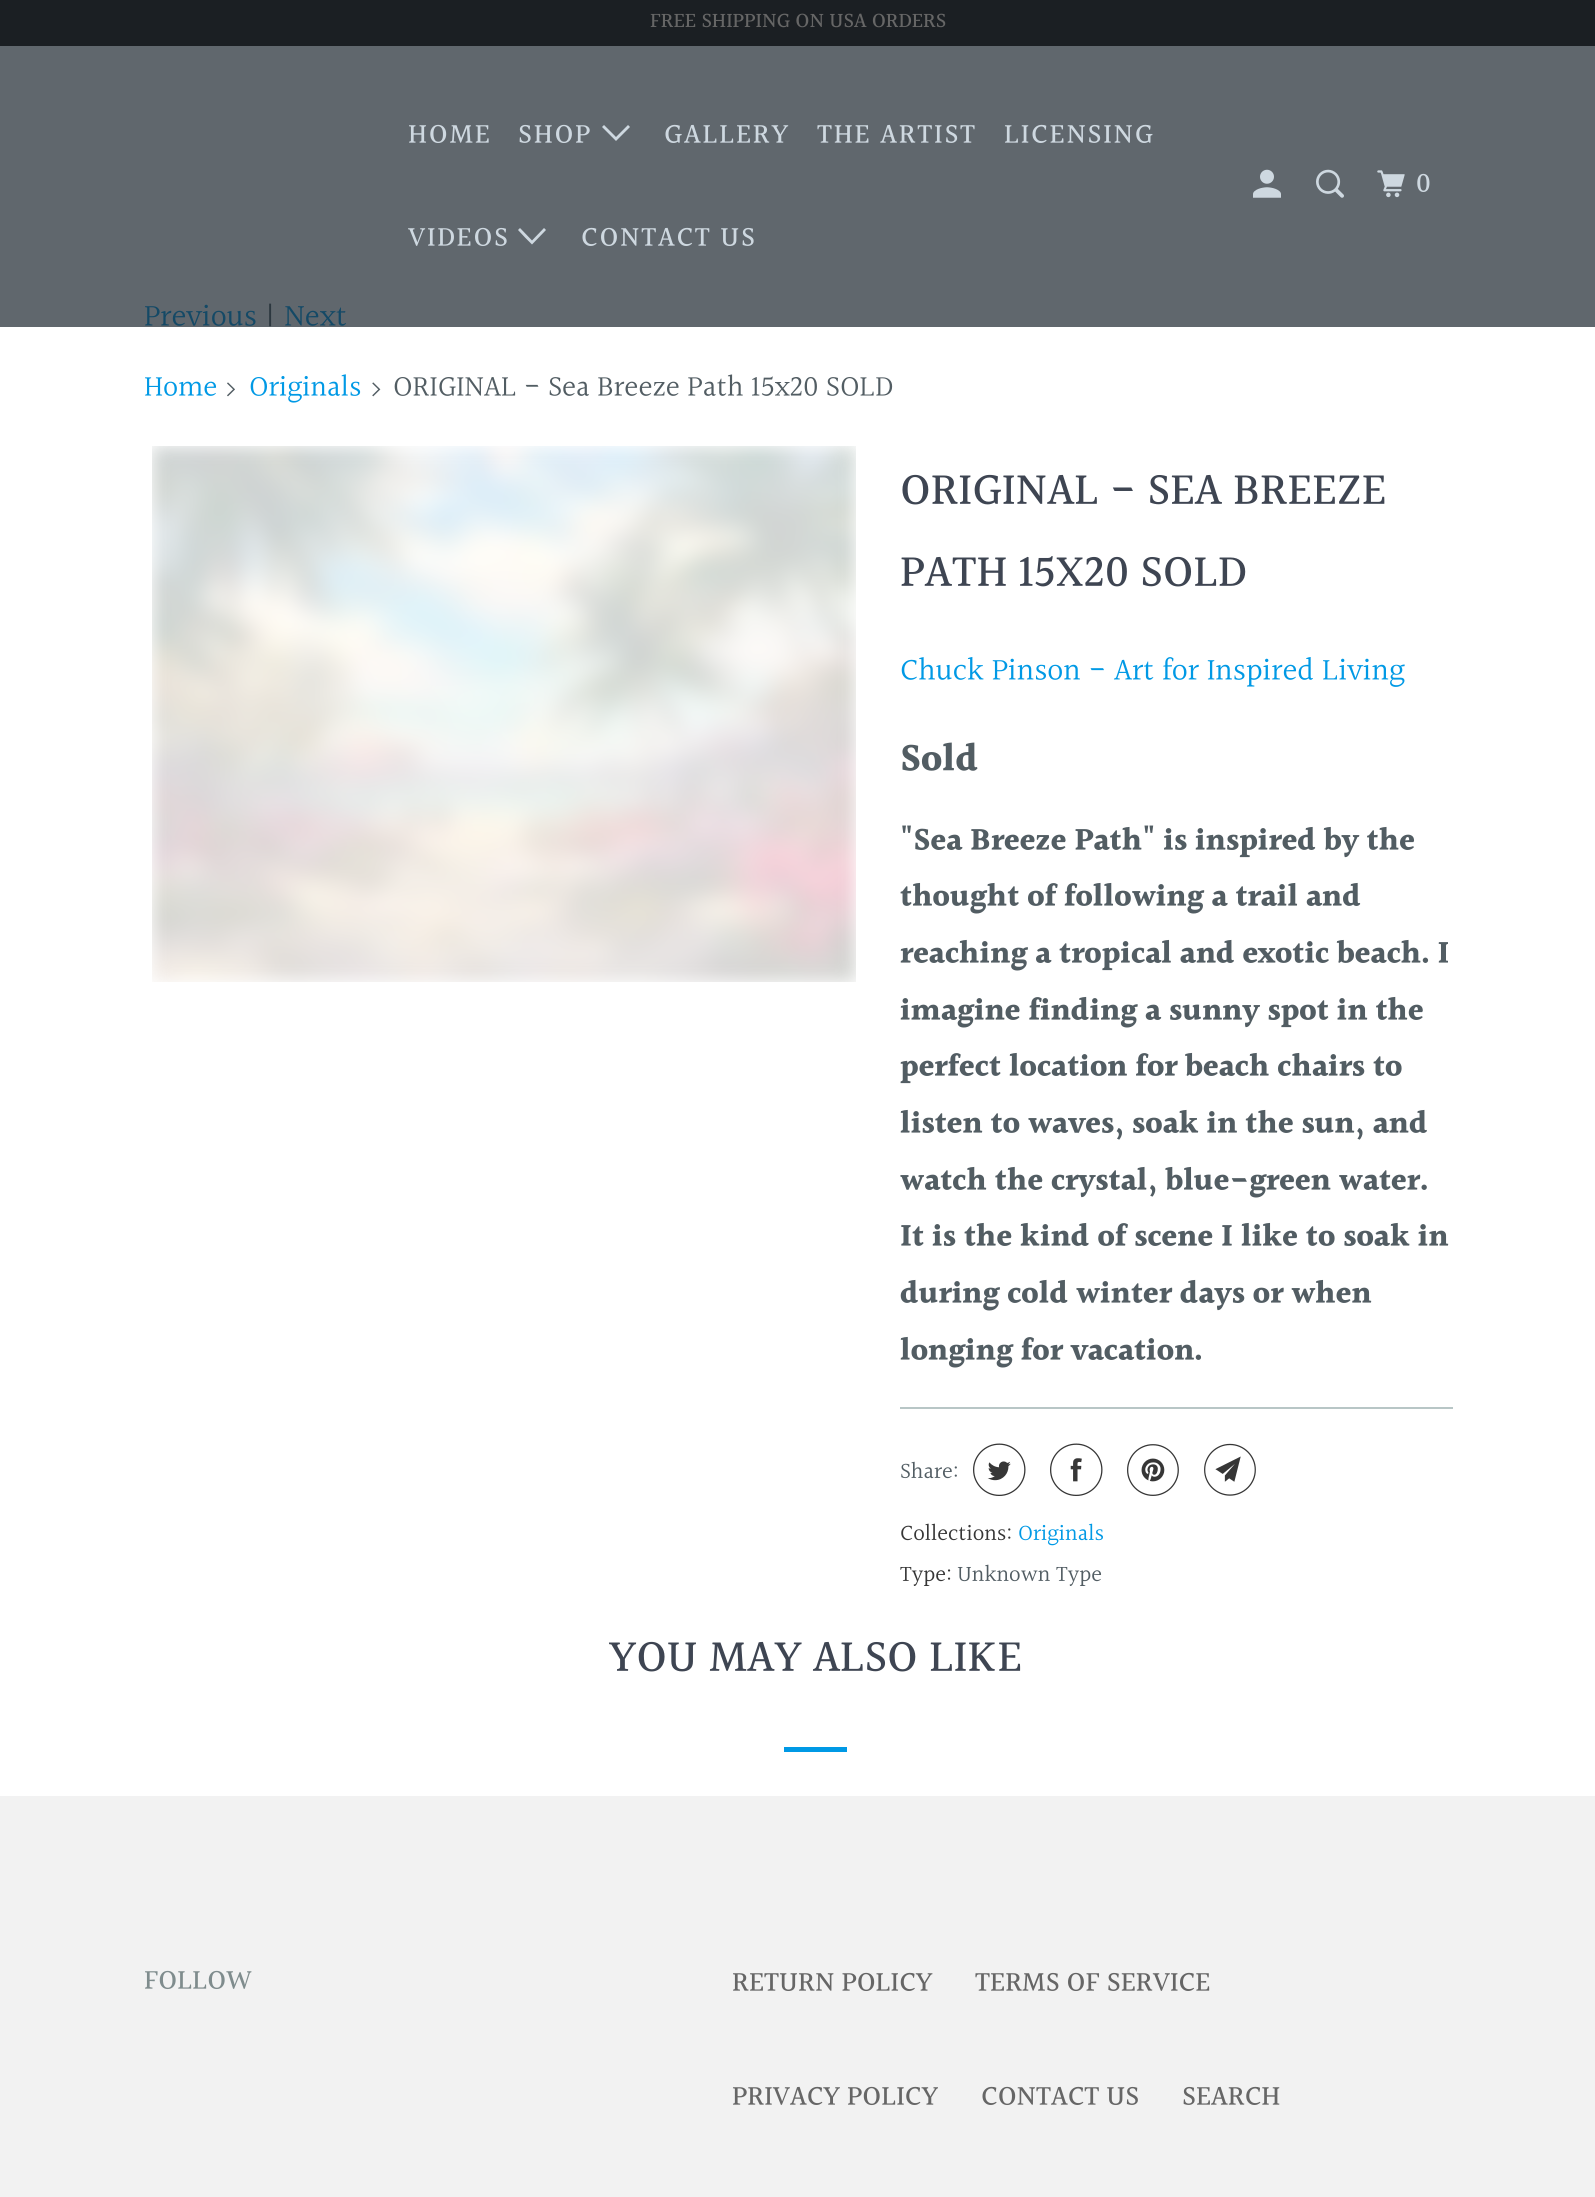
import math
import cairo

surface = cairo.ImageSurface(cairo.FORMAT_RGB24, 1595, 2197)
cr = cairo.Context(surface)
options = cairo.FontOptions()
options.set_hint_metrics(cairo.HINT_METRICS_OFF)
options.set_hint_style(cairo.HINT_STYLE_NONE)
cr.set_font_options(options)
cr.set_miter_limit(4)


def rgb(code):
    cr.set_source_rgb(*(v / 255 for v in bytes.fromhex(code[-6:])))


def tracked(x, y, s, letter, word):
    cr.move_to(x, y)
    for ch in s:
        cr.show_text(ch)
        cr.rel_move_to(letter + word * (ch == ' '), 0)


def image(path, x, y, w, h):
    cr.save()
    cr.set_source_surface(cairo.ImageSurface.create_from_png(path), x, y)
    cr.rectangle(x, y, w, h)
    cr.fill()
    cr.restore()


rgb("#f2f2f2")
cr.paint()
for x, y, w, h, color in [
    (0, 327, 1595, 1469, "#ffffff"),
    (0, 46, 1595, 281, "#60676d"),
    (0, 0, 1595, 46, "#1b1f23"),
]:
    rgb(color)
    cr.rectangle(x, y, w, h)
    cr.fill()
rgb("#ced8e0")
cr.new_path()
cr.move_to(609, 134)
cr.line_to(602, 127)
cr.line_to(604, 125)
cr.line_to(616, 137)
cr.line_to(628, 125)
cr.line_to(630, 127)
cr.line_to(616, 141)
cr.close_path()
cr.fill()
cr.new_path()
cr.move_to(525, 237.5)
cr.line_to(518, 230)
cr.line_to(520, 228)
cr.line_to(532, 240.5)
cr.line_to(544, 228)
cr.line_to(546, 230)
cr.line_to(532, 244.5)
cr.close_path()
cr.fill()
image("img/1.png", 1253, 169, 28, 29)
image("img/2.png", 1316, 169, 28, 29)
image("img/3.png", 1377, 170, 28, 28)
image("img/4.png", 227, 382, 8, 15)
image("img/5.png", 372, 382, 9, 15)
image("img/6.png", 152, 446, 704, 536)
rgb("#b8c6c6")
cr.rectangle(900, 1407, 553, 2)
cr.fill()
image("img/7.png", 973, 1443, 53, 53)
image("img/8.png", 1050, 1443, 53, 53)
image("img/9.png", 1127, 1444, 52, 52)
image("img/10.png", 1204, 1443, 52, 53)
rgb("#0099e5")
cr.rectangle(784, 1747, 63, 5)
cr.fill()
cr.select_font_face("Halant Medium")
cr.set_font_size(21)
rgb("#666666")
cr.move_to(650, 28)
cr.show_text("FREE SHIPPING ON USA ORDERS")
cr.set_font_size(28)
rgb("#ced8e0")
for x, y, s in [
    (408, 144, "HOME"),
    (518, 144, "SHOP"),
    (664, 144, "GALLERY"),
    (817, 144, "THE ARTIST"),
    (1004, 144, "LICENSING"),
    (408, 247, "VIDEOS"),
    (581, 247, "CONTACT US"),
    (1416, 193, "0"),
]:
    tracked(x, y, s, 1.75, 0)
cr.select_font_face("Halant")
cr.set_font_size(31.5)
rgb("#144966")
cr.move_to(144, 327)
cr.show_text("Previous")
rgb("#2c373f")
cr.move_to(265, 327)
cr.show_text("|")
rgb("#144966")
cr.move_to(284, 327)
cr.show_text("Next")
cr.set_font_size(29.75)
rgb("#0099e5")
cr.move_to(144, 397)
cr.show_text("Home")
cr.move_to(249, 397)
cr.show_text("Originals")
rgb("#525d63")
cr.move_to(393, 397)
cr.show_text("ORIGINAL - Sea Breeze Path 15x20 SOLD")
cr.select_font_face("Halant Medium")
cr.set_font_size(45.5)
rgb("#3e4552")
cr.move_to(900, 506)
cr.show_text("ORIGINAL - SEA BREEZE")
cr.move_to(900, 588)
cr.show_text("PATH 15X20 SOLD")
cr.select_font_face("Halant")
cr.set_font_size(31.5)
rgb("#0099e5")
cr.move_to(900, 681)
cr.show_text("Chuck Pinson - Art for Inspired Living")
cr.select_font_face("Halant", cairo.FONT_SLANT_NORMAL, cairo.FONT_WEIGHT_BOLD)
cr.set_font_size(38.5)
rgb("#525d63")
cr.move_to(900, 772)
cr.show_text("Sold")
cr.set_font_size(31.5)
for x, y, s in [
    (900, 851, "\"Sea Breeze Path\" is inspired by the"),
    (900, 907, "thought of following a trail and"),
    (900, 964, "reaching a tropical and exotic beach. I"),
    (900, 1021, "imagine finding a sunny spot in the"),
    (900, 1077, "perfect location for beach chairs to"),
    (900, 1134, "listen to waves, soak in the sun, and"),
    (900, 1191, "watch the crystal, blue-green water."),
    (900, 1247, "It is the kind of scene I like to soak in"),
    (900, 1304, "during cold winter days or when"),
    (900, 1361, "longing for vacation."),
]:
    cr.move_to(x, y)
    cr.show_text(s)
cr.select_font_face("Halant")
cr.set_font_size(22.75)
cr.move_to(900, 1479)
cr.show_text("Share:")
rgb("#363636")
cr.move_to(900, 1541)
cr.show_text("Collections:")
rgb("#0099e5")
cr.move_to(1018, 1541)
cr.show_text("Originals")
rgb("#363636")
cr.move_to(900, 1582)
cr.show_text("Type:")
rgb("#525d63")
cr.move_to(957, 1582)
cr.show_text("Unknown Type")
cr.select_font_face("Halant Medium")
cr.set_font_size(45.5)
rgb("#3e4552")
cr.move_to(609, 1673)
cr.show_text("YOU MAY ALSO LIKE")
cr.set_font_size(28)
rgb("#7f8c8d")
cr.move_to(144, 1990)
cr.show_text("FOLLOW")
rgb("#666666")
for x, y, s in [
    (732, 1992, "RETURN POLICY"),
    (975, 1992, "TERMS OF SERVICE"),
    (732, 2106, "PRIVACY POLICY"),
    (981, 2106, "CONTACT US"),
    (1182, 2106, "SEARCH"),
]:
    cr.move_to(x, y)
    cr.show_text(s)
surface.write_to_png("page.png")
